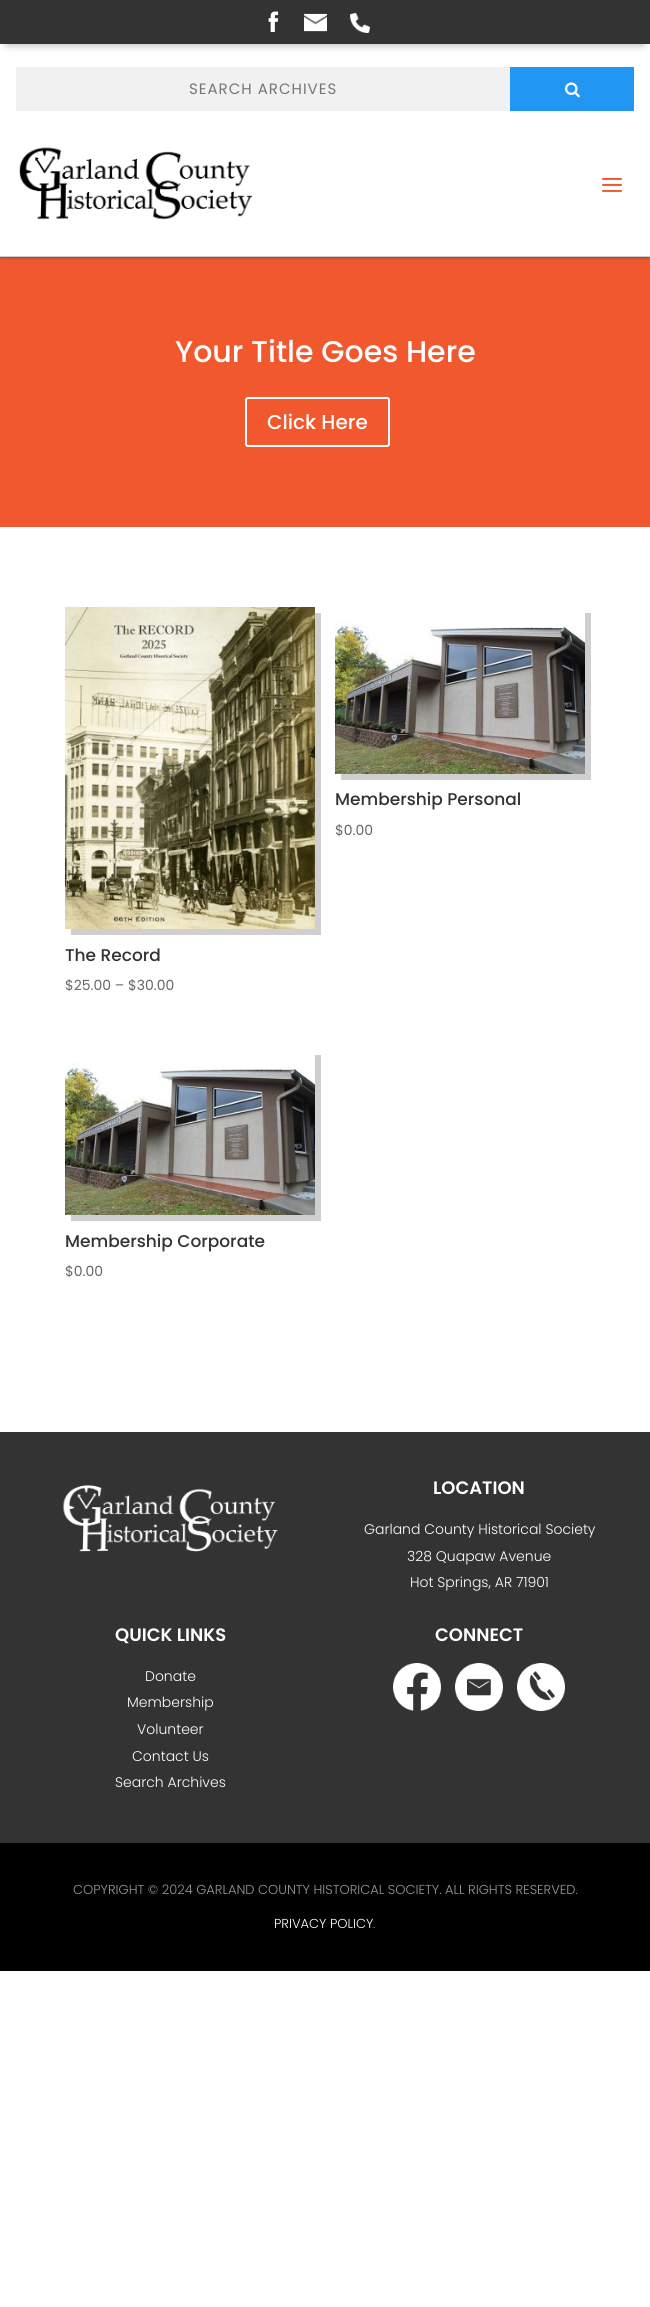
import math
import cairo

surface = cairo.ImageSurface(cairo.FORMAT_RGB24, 650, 2307)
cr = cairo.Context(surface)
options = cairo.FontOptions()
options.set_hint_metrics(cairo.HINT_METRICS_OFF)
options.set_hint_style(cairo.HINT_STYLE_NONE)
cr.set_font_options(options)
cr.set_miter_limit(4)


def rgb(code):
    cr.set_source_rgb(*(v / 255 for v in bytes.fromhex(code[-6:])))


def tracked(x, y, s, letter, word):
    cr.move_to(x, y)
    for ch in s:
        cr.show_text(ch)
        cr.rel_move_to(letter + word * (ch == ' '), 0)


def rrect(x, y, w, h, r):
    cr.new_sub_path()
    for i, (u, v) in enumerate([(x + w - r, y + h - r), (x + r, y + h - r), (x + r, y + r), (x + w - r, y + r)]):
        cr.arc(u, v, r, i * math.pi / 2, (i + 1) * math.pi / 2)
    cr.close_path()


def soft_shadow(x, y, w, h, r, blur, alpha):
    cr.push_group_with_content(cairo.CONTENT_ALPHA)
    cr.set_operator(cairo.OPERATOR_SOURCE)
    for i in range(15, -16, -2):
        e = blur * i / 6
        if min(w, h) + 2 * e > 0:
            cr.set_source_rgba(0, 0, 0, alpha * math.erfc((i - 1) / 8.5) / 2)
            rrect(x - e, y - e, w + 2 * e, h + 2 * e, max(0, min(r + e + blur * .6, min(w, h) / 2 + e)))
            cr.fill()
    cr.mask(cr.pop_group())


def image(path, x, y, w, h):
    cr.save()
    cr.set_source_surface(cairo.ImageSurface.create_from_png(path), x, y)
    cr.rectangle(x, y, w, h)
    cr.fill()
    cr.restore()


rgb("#ffffff")
cr.paint()
rgb("#f1582e")
cr.rectangle(0, 257, 650, 270)
cr.fill()
cr.save()
cr.rectangle(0, 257, 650, 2)
cr.clip()
rgb("#000000")
soft_shadow(1, 46, 648, 211, 0, 1.5, 0.3)
cr.restore()
cr.save()
cr.rectangle(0, 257, 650, 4)
cr.clip()
rgb("#32325d")
soft_shadow(1, 47, 648, 211, 0, 2.5, 0.25)
cr.restore()
rgb("#cccccc")
cr.rectangle(0, 256, 650, 1)
cr.fill()
image("img/1.png", 19, 147, 234, 73)
image("img/2.png", 602, 177, 20, 15)
rgb("#000000")
soft_shadow(7, 15, 636, 30, 0, 4, 0.3)
rgb("#333333")
cr.rectangle(0, 0, 650, 44)
cr.fill()
image("img/3.png", 268, 11, 11, 22)
image("img/4.png", 304, 13, 23, 19)
image("img/5.png", 350, 13, 20, 20)
rgb("#f1f1f1")
cr.rectangle(16, 67, 494, 44)
cr.fill()
rgb("#2196f3")
cr.rectangle(510, 67, 124, 44)
cr.fill()
image("img/6.png", 565, 82, 15, 16)
rrect(246, 398, 143, 48, 2)
rgb("#ffffff")
cr.stroke()
rgb("#cfcfcf")
cr.new_path()
cr.move_to(341, 774)
cr.line_to(341, 780)
cr.line_to(591, 780)
cr.line_to(591, 613)
cr.line_to(585, 613)
cr.line_to(585, 774)
cr.close_path()
cr.fill()
image("img/7.png", 335, 620, 250, 154)
cr.new_path()
cr.move_to(71, 929)
cr.line_to(71, 935)
cr.line_to(321, 935)
cr.line_to(321, 613)
cr.line_to(315, 613)
cr.line_to(315, 929)
cr.close_path()
cr.fill()
image("img/8.png", 65, 607, 250, 322)
cr.new_path()
cr.move_to(71, 1215)
cr.line_to(71, 1221)
cr.line_to(321, 1221)
cr.line_to(321, 1055)
cr.line_to(315, 1055)
cr.line_to(315, 1215)
cr.close_path()
cr.fill()
image("img/9.png", 65, 1062, 250, 153)
rgb("#333333")
cr.rectangle(0, 1432, 650, 411)
cr.fill()
image("img/10.png", 63, 1485, 215, 67)
image("img/11.png", 393, 1663, 48, 48)
image("img/12.png", 455, 1663, 48, 48)
image("img/13.png", 517, 1663, 48, 48)
rgb("#000000")
cr.rectangle(0, 1843, 650, 128)
cr.fill()
cr.select_font_face("Poppins")
cr.set_font_size(15)
rgb("#757575")
tracked(189, 94, "SEARCH ARCHIVES", 1, 0)
cr.select_font_face("Poppins Medium")
cr.set_font_size(30)
rgb("#ffffff")
cr.move_to(175, 362)
cr.show_text("Your Title Goes Here")
cr.set_font_size(20)
cr.move_to(267, 429)
cr.show_text("Click Here")
cr.set_font_size(17)
rgb("#333333")
cr.move_to(335, 805)
cr.show_text("Membership Personal")
cr.select_font_face("Poppins")
cr.set_font_size(14)
rgb("#666666")
cr.move_to(335, 835)
cr.show_text("$0.00")
cr.select_font_face("Poppins Medium")
cr.set_font_size(17)
rgb("#333333")
cr.move_to(65, 961)
cr.show_text("The Record")
cr.select_font_face("Poppins")
cr.set_font_size(14)
rgb("#666666")
cr.move_to(65, 990)
cr.show_text("$25.00 – $30.00")
cr.select_font_face("Poppins Medium")
cr.set_font_size(17)
rgb("#333333")
cr.move_to(65, 1247)
cr.show_text("Membership Corporate")
cr.select_font_face("Poppins")
cr.set_font_size(14)
rgb("#666666")
cr.move_to(65, 1276)
cr.show_text("$0.00")
cr.select_font_face("Poppins SemiBold")
cr.set_font_size(18)
rgb("#ffffff")
cr.move_to(433, 1494)
cr.show_text("LOCATION")
cr.select_font_face("Poppins Light")
cr.set_font_size(14)
for x, y, s in [
    (364, 1534, "Garland County Historical Society"),
    (407, 1561, "328 Quapaw Avenue"),
    (410, 1587, "Hot Springs, AR 71901"),
]:
    cr.move_to(x, y)
    cr.show_text(s)
cr.select_font_face("Poppins SemiBold")
cr.set_font_size(18)
cr.move_to(115, 1641)
cr.show_text("QUICK LINKS")
cr.select_font_face("Poppins Light")
cr.set_font_size(14)
for x, y, s in [
    (145, 1681, "Donate"),
    (127, 1707, "Membership"),
    (137, 1734, "Volunteer"),
    (132, 1761, "Contact Us"),
    (115, 1787, "Search Archives"),
]:
    cr.move_to(x, y)
    cr.show_text(s)
cr.select_font_face("Poppins SemiBold")
cr.set_font_size(18)
cr.move_to(435, 1641)
cr.show_text("CONNECT")
cr.select_font_face("Poppins Light")
cr.set_font_size(13)
rgb("#999999")
cr.move_to(73, 1894)
cr.show_text("COPYRIGHT © 2024 GARLAND COUNTY HISTORICAL SOCIETY. ALL RIGHTS RESERVED.")
rgb("#ffffff")
cr.move_to(274, 1928)
cr.show_text("PRIVACY POLICY")
rgb("#999999")
cr.move_to(373, 1928)
cr.show_text(".")
surface.write_to_png("page.png")
